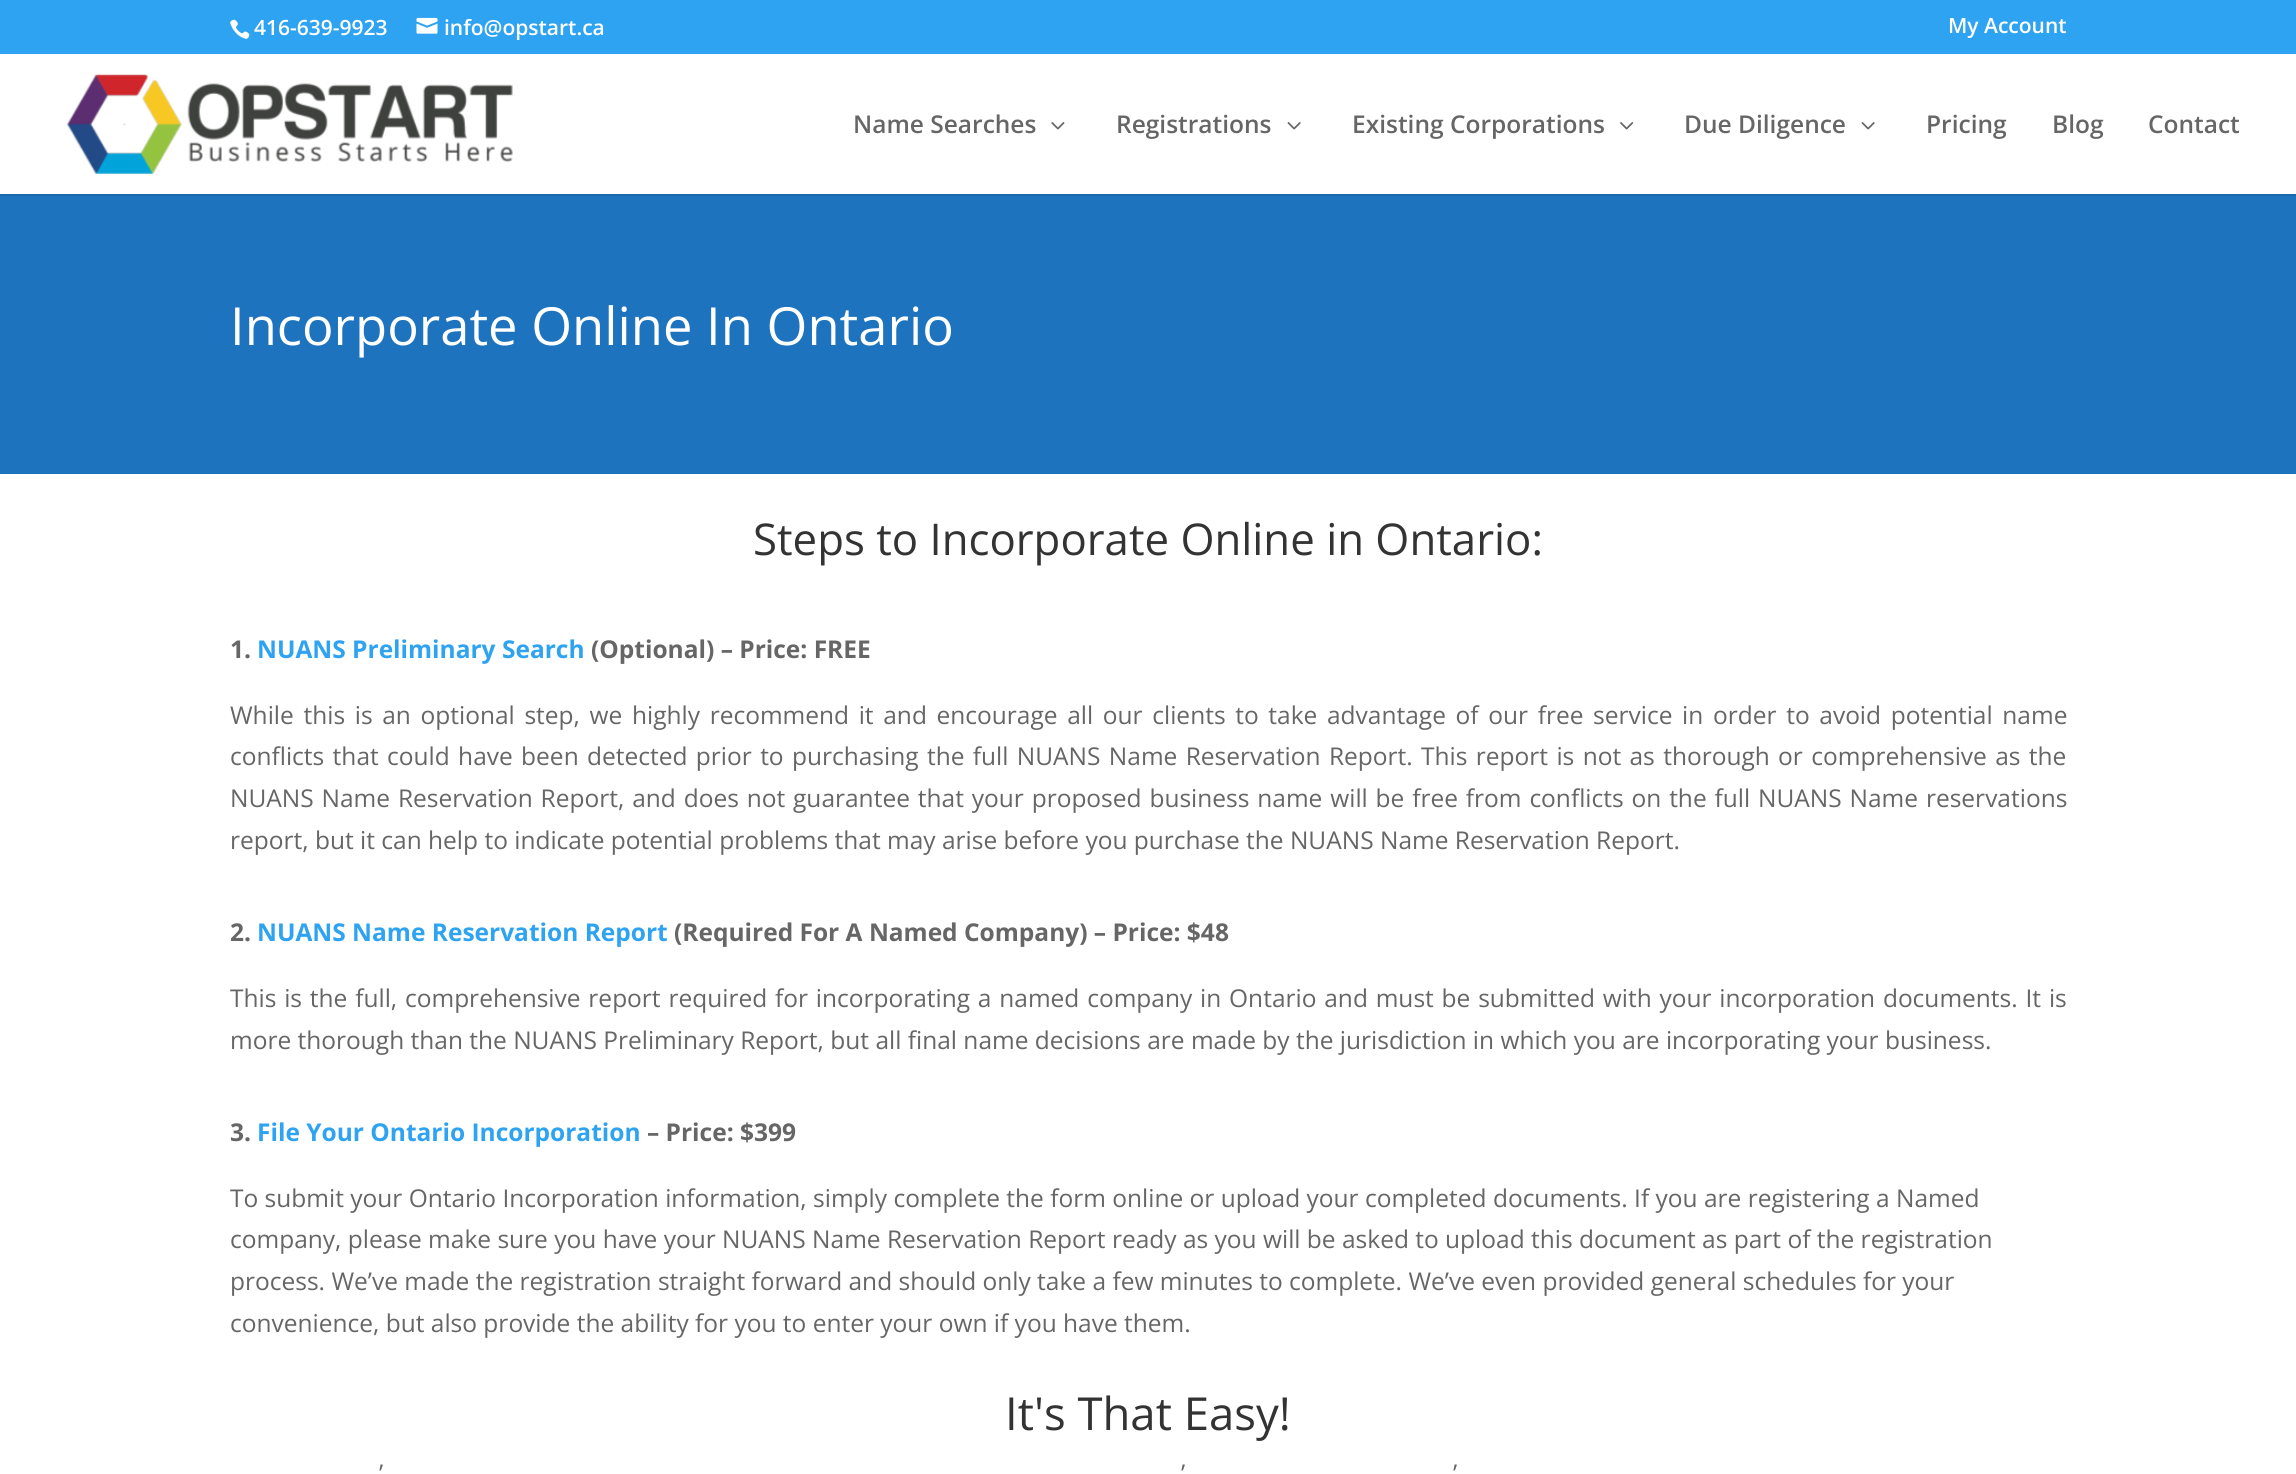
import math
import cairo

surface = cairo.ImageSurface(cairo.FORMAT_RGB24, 2296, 1474)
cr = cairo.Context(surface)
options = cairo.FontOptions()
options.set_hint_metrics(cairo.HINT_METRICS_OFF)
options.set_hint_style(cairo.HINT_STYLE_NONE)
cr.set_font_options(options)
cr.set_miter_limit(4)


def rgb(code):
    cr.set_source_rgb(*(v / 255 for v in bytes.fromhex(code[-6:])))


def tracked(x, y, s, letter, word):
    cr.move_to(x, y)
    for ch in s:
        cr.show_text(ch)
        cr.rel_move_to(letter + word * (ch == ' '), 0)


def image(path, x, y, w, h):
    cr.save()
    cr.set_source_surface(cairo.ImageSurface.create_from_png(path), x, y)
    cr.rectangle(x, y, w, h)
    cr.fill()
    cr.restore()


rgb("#ffffff")
cr.paint()
rgb("#2ea3f2")
cr.rectangle(0, 0, 2296, 54)
cr.fill()
image("img/1.png", 230, 19, 20, 20)
image("img/2.png", 416, 17, 22, 17)
rgb("#1b68ab")
cr.rectangle(0, 194, 2296, 2)
cr.fill()
image("img/3.png", 66, 74, 447, 101)
image("img/4.png", 1051, 122, 14, 8)
image("img/5.png", 1287, 122, 14, 8)
image("img/6.png", 1620, 122, 14, 8)
image("img/5.png", 1861, 122, 14, 8)
rgb("#1e73be")
cr.rectangle(0, 196, 2296, 278)
cr.fill()
cr.select_font_face("Open Sans SemiBold")
cr.set_font_size(21)
rgb("#ffffff")
for x, y, s in [
    (254, 35, "416-639-9923"),
    (444, 35, "info@opstart.ca"),
    (1948, 33, "My Account"),
]:
    cr.move_to(x, y)
    cr.show_text(s)
cr.set_font_size(24.5)
rgb("#666666")
for x, y, s in [
    (853, 133, "Name Searches"),
    (1116, 133, "Registrations"),
    (1352, 133, "Existing Corporations"),
    (1684, 133, "Due Diligence"),
    (1926, 133, "Pricing"),
    (2052, 133, "Blog"),
    (2148, 133, "Contact"),
]:
    cr.move_to(x, y)
    cr.show_text(s)
cr.select_font_face("Open Sans")
cr.set_font_size(52.5)
rgb("#ffffff")
cr.move_to(230, 345)
cr.show_text("Incorporate Online In Ontario")
cr.set_font_size(43.75)
rgb("#333333")
cr.move_to(753, 555)
cr.show_text("Steps to Incorporate Online in Ontario:")
cr.select_font_face("Open Sans", cairo.FONT_SLANT_NORMAL, cairo.FONT_WEIGHT_BOLD)
cr.set_font_size(24.5)
rgb("#666666")
cr.move_to(230, 658)
cr.show_text("1.")
rgb("#2ea3f2")
cr.move_to(257, 658)
cr.show_text("NUANS Preliminary Search")
rgb("#666666")
cr.move_to(591, 658)
cr.show_text("(Optional) – Price: FREE")
cr.select_font_face("Open Sans")
tracked(230, 724, "While this is an optional step, we highly recommend it and encourage all our clients to take advantage of our free service in order to avoid potential name", 0, 3.3)
tracked(230, 765, "conflicts that could have been detected prior to purchasing the full NUANS Name Reservation Report. This report is not as thorough or comprehensive as the", 0, 2)
tracked(230, 807, "NUANS Name Reservation Report, and does not guarantee that your proposed business name will be free from conflicts on the full NUANS Name reservations", 0, 1.5)
cr.move_to(230, 849)
cr.show_text("report, but it can help to indicate potential problems that may arise before you purchase the NUANS Name Reservation Report.")
cr.select_font_face("Open Sans", cairo.FONT_SLANT_NORMAL, cairo.FONT_WEIGHT_BOLD)
cr.move_to(230, 941)
cr.show_text("2.")
rgb("#2ea3f2")
cr.move_to(257, 941)
cr.show_text("NUANS Name Reservation Report")
rgb("#666666")
cr.move_to(674, 941)
cr.show_text("(Required For A Named Company) – Price: $48")
cr.select_font_face("Open Sans")
tracked(230, 1007, "This is the full, comprehensive report required for incorporating a named company in Ontario and must be submitted with your incorporation documents. It is", 0, 1.45)
cr.move_to(230, 1049)
cr.show_text("more thorough than the NUANS Preliminary Report, but all final name decisions are made by the jurisdiction in which you are incorporating your business.")
cr.select_font_face("Open Sans", cairo.FONT_SLANT_NORMAL, cairo.FONT_WEIGHT_BOLD)
cr.move_to(230, 1141)
cr.show_text("3.")
rgb("#2ea3f2")
cr.move_to(257, 1141)
cr.show_text("File Your Ontario Incorporation")
rgb("#666666")
cr.move_to(647, 1141)
cr.show_text("– Price: $399")
cr.select_font_face("Open Sans")
for x, y, s in [
    (230, 1207, "To submit your Ontario Incorporation information, simply complete the form online or upload your completed documents. If you are registering a Named"),
    (230, 1248, "company, please make sure you have your NUANS Name Reservation Report ready as you will be asked to upload this document as part of the registration"),
    (230, 1290, "process. We’ve made the registration straight forward and should only take a few minutes to complete. We’ve even provided general schedules for your"),
    (230, 1332, "convenience, but also provide the ability for you to enter your own if you have them."),
]:
    cr.move_to(x, y)
    cr.show_text(s)
cr.set_font_size(45.5)
rgb("#333333")
cr.move_to(1005, 1430)
cr.show_text("It's That Easy!")
cr.set_font_size(24.5)
rgb("#666666")
for x, y, s in [
    (379, 1482, "’"),
    (1181, 1482, "’"),
    (1453, 1482, "’"),
]:
    cr.move_to(x, y)
    cr.show_text(s)
surface.write_to_png("page.png")
